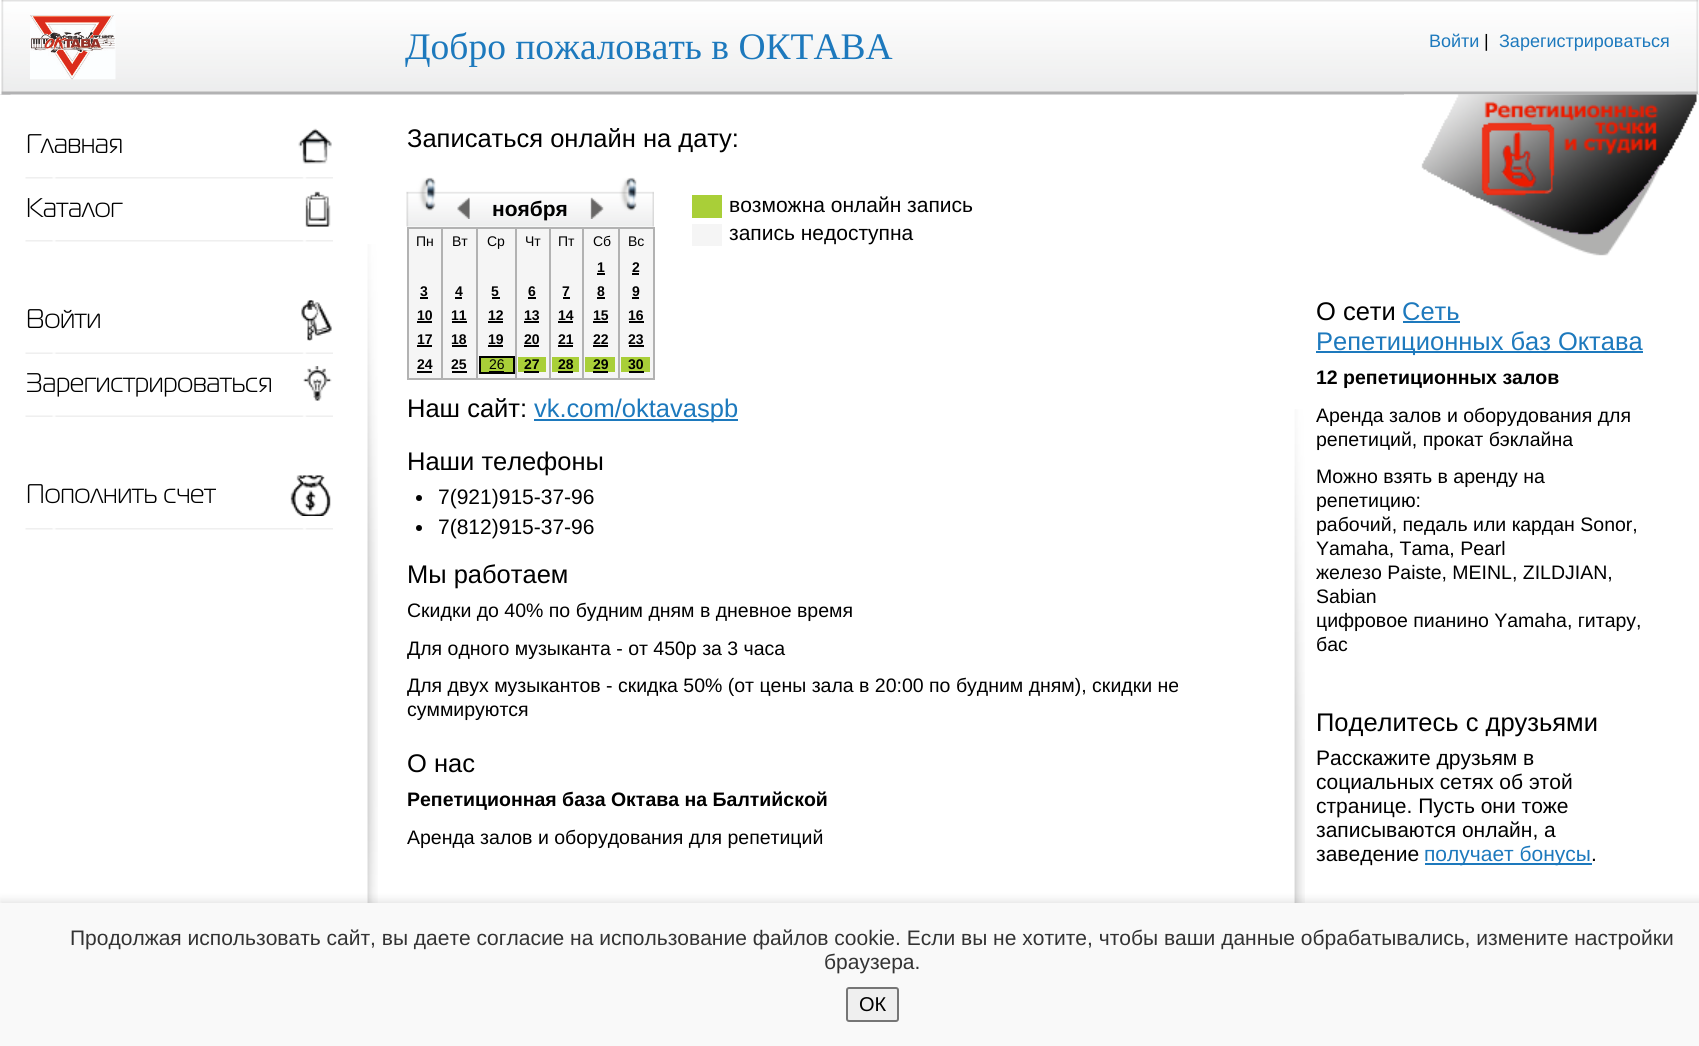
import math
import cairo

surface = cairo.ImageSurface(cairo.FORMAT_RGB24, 1699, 1046)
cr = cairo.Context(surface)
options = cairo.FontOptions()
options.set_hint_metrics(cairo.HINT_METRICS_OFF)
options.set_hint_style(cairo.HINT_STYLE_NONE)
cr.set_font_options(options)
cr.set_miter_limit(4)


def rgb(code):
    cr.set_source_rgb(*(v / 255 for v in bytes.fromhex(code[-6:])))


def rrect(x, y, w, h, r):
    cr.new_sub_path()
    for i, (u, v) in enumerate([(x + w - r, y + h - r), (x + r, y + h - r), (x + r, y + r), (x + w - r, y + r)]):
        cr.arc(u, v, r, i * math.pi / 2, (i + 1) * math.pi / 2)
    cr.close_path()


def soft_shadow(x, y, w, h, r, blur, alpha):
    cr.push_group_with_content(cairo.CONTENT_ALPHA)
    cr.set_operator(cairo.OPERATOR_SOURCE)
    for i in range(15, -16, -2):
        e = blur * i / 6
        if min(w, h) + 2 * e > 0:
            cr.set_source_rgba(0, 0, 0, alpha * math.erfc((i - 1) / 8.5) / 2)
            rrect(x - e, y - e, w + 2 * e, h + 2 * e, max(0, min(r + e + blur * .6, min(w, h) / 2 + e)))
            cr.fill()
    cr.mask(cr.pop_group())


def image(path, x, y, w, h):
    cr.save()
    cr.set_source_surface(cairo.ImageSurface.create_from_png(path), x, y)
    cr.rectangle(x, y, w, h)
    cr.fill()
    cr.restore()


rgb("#ffffff")
cr.paint()
image("img/1.png", 0, 0, 1699, 95)
image("img/2.png", 1675, 0, 24, 95)
image("img/3.png", 0, 0, 11, 95)
image("img/4.png", 30, 15, 86, 65)
image("img/5.png", 25, 177, 308, 2)
image("img/6.png", 298, 128, 34, 36)
image("img/5.png", 25, 240, 308, 2)
image("img/7.png", 305, 191, 26, 36)
image("img/8.png", 25, 352, 308, 2)
image("img/9.png", 301, 300, 31, 41)
image("img/10.png", 25, 415, 308, 2)
image("img/11.png", 303, 366, 29, 35)
image("img/5.png", 25, 528, 308, 2)
image("img/12.png", 290, 475, 41, 41)
image("img/13.png", 367, 244, 11, 659)
image("img/14.png", 1404, 94, 294, 162)
image("img/15.png", 406, 177, 248, 50)
image("img/16.png", 457, 197, 13, 22)
image("img/17.png", 590, 197, 14, 22)
for x, y, w, h, color in [
    (407, 227, 247, 2, "#b2b2b2"),
    (653, 227, 2, 153, "#b2b2b2"),
    (407, 378, 247, 2, "#b2b2b2"),
    (407, 227, 2, 153, "#b2b2b2"),
    (409, 229, 32, 149, "#f5f5f5"),
    (443, 229, 33, 149, "#f5f5f5"),
    (478, 229, 37, 149, "#f5f5f5"),
    (517, 229, 32, 149, "#f5f5f5"),
    (551, 229, 31, 149, "#f5f5f5"),
    (584, 229, 34, 149, "#f5f5f5"),
    (620, 229, 33, 149, "#f5f5f5"),
    (597, 273, 8, 2, "#000000"),
    (632, 273, 7, 2, "#000000"),
    (420, 297, 8, 2, "#000000"),
    (455, 297, 7, 2, "#000000"),
    (492, 297, 8, 2, "#000000"),
    (528, 297, 8, 2, "#000000"),
    (563, 297, 7, 2, "#000000"),
    (597, 297, 8, 2, "#000000"),
    (632, 297, 7, 2, "#000000"),
    (417, 321, 15, 2, "#000000"),
    (452, 321, 15, 2, "#000000"),
    (488, 321, 15, 2, "#000000"),
    (524, 321, 15, 2, "#000000"),
    (558, 321, 15, 2, "#000000"),
    (593, 321, 15, 2, "#000000"),
    (629, 321, 15, 2, "#000000"),
    (417, 345, 15, 2, "#000000"),
    (452, 345, 15, 2, "#000000"),
    (488, 345, 15, 2, "#000000"),
    (524, 345, 15, 2, "#000000"),
    (558, 345, 15, 2, "#000000"),
    (593, 345, 15, 2, "#000000"),
    (629, 345, 15, 2, "#000000"),
    (417, 371, 15, 2, "#000000"),
    (441, 227, 2, 153, "#b2b2b2"),
    (452, 371, 15, 2, "#000000"),
    (476, 227, 2, 153, "#b2b2b2"),
]:
    rgb(color)
    cr.rectangle(x, y, w, h)
    cr.fill()
rgb("#a9cf38")
cr.rectangle(480, 357, 34, 16)
cr.fill_preserve()
rgb("#000000")
cr.stroke()
for x, y, w, h, color in [
    (489, 371, 15, 1, "#000000"),
    (515, 227, 2, 153, "#b2b2b2"),
    (518, 357, 28, 15, "#a9cf38"),
    (524, 371, 15, 2, "#000000"),
    (549, 227, 2, 153, "#b2b2b2"),
    (552, 357, 27, 15, "#a9cf38"),
    (558, 371, 15, 2, "#000000"),
    (582, 227, 2, 153, "#b2b2b2"),
    (585, 357, 30, 15, "#a9cf38"),
    (593, 371, 15, 2, "#000000"),
    (618, 227, 2, 153, "#b2b2b2"),
    (621, 357, 29, 15, "#a9cf38"),
    (629, 371, 15, 2, "#000000"),
    (692, 195, 30, 23, "#a9cf38"),
    (692, 224, 30, 22, "#f5f5f5"),
    (534, 419, 204, 2, "#1d79bd"),
]:
    rgb(color)
    cr.rectangle(x, y, w, h)
    cr.fill()
rgb("#000000")
cr.arc(419, 498, 3, 0, 2 * math.pi)
cr.fill()
cr.arc(419, 528, 3, 0, 2 * math.pi)
cr.fill()
image("img/18.png", 1294, 409, 11, 494)
for x, y, w, h, color in [
    (1403, 321, 57, 2, "#1d79bd"),
    (1316, 351, 327, 2, "#1d79bd"),
    (1425, 863, 167, 2, "#1d79bd"),
]:
    rgb(color)
    cr.rectangle(x, y, w, h)
    cr.fill()
rgb("#000000")
soft_shadow(0, 900, 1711, 144, 0, 4, 0.1)
rgb("#f9f9f9")
cr.rectangle(0, 903, 1699, 143)
cr.fill()
rgb("#efefef")
rrect(847, 988, 51, 33, 2)
cr.fill_preserve()
rgb("#767676")
cr.stroke()
cr.select_font_face("Liberation Serif")
cr.set_font_size(37.5)
rgb("#1d79bd")
cr.move_to(405, 59)
cr.show_text("Добро пожаловать в ОКТАВА")
cr.select_font_face("Liberation Sans")
cr.set_font_size(18)
cr.move_to(1429, 47)
cr.show_text("Войти")
rgb("#000000")
cr.move_to(1484, 47)
cr.show_text("|")
rgb("#1d79bd")
cr.move_to(1499, 47)
cr.show_text("Зарегистрироваться")
cr.select_font_face("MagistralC")
cr.set_font_size(27)
rgb("#000000")
for x, y, s in [
    (26, 153, "Главная"),
    (26, 217, "Каталог"),
    (26, 328, "Войти"),
    (26, 392, "Зарегистрироваться"),
    (26, 503, "Пополнить счет"),
]:
    cr.move_to(x, y)
    cr.show_text(s)
cr.select_font_face("Liberation Sans")
cr.set_font_size(25.5)
cr.move_to(407, 147)
cr.show_text("Записаться онлайн на дату:")
cr.select_font_face("Liberation Sans", cairo.FONT_SLANT_NORMAL, cairo.FONT_WEIGHT_BOLD)
cr.set_font_size(21)
cr.move_to(492, 216)
cr.show_text("ноября")
cr.select_font_face("Liberation Sans")
cr.set_font_size(14)
for x, y, s in [
    (416, 246, "Пн"),
    (452, 246, "Вт"),
    (487, 246, "Ср"),
    (525, 246, "Чт"),
    (558, 246, "Пт"),
    (593, 246, "Сб"),
    (628, 246, "Вс"),
]:
    cr.move_to(x, y)
    cr.show_text(s)
cr.select_font_face("Liberation Sans", cairo.FONT_SLANT_NORMAL, cairo.FONT_WEIGHT_BOLD)
for x, y, s in [
    (597, 272, "1"),
    (632, 272, "2"),
    (420, 296, "3"),
    (455, 296, "4"),
    (491, 296, "5"),
    (528, 296, "6"),
    (562, 296, "7"),
    (597, 296, "8"),
    (632, 296, "9"),
    (417, 320, "10"),
    (451, 320, "11"),
    (488, 320, "12"),
    (524, 320, "13"),
    (558, 320, "14"),
    (593, 320, "15"),
    (628, 320, "16"),
    (417, 344, "17"),
    (451, 344, "18"),
    (488, 344, "19"),
    (524, 344, "20"),
    (558, 344, "21"),
    (593, 344, "22"),
    (628, 344, "23"),
    (417, 369, "24"),
    (451, 369, "25"),
]:
    cr.move_to(x, y)
    cr.show_text(s)
cr.select_font_face("Liberation Sans")
cr.move_to(489, 369)
cr.show_text("26")
cr.select_font_face("Liberation Sans", cairo.FONT_SLANT_NORMAL, cairo.FONT_WEIGHT_BOLD)
for x, y, s in [
    (524, 369, "27"),
    (558, 369, "28"),
    (593, 369, "29"),
    (628, 369, "30"),
]:
    cr.move_to(x, y)
    cr.show_text(s)
cr.select_font_face("Liberation Sans")
cr.set_font_size(21)
cr.move_to(729, 212)
cr.show_text("возможна онлайн запись")
cr.move_to(729, 240)
cr.show_text("запись недоступна")
cr.set_font_size(25.5)
cr.move_to(407, 417)
cr.show_text("Наш сайт:")
rgb("#1d79bd")
cr.move_to(534, 417)
cr.show_text("vk.com/oktavaspb")
rgb("#000000")
cr.move_to(407, 470)
cr.show_text("Наши телефоны")
cr.set_font_size(21)
cr.move_to(438, 504)
cr.show_text("7(921)915-37-96")
cr.move_to(438, 534)
cr.show_text("7(812)915-37-96")
cr.set_font_size(25.5)
cr.move_to(407, 583)
cr.show_text("Мы работаем")
cr.set_font_size(19.5)
for x, y, s in [
    (407, 617, "Скидки до 40% по будним дням в дневное время"),
    (407, 655, "Для одного музыканта - от 450р за 3 часа"),
    (407, 692, "Для двух музыкантов - скидка 50% (от цены зала в 20:00 по будним дням), скидки не"),
    (407, 716, "суммируются"),
]:
    cr.move_to(x, y)
    cr.show_text(s)
cr.set_font_size(25.5)
cr.move_to(407, 772)
cr.show_text("О нас")
cr.select_font_face("Liberation Sans", cairo.FONT_SLANT_NORMAL, cairo.FONT_WEIGHT_BOLD)
cr.set_font_size(19.5)
cr.move_to(407, 806)
cr.show_text("Репетиционная база Октава на Балтийской")
cr.select_font_face("Liberation Sans")
cr.move_to(407, 844)
cr.show_text("Аренда залов и оборудования для репетиций")
cr.set_font_size(25.5)
cr.move_to(1316, 320)
cr.show_text("О сети")
rgb("#1d79bd")
cr.move_to(1402, 320)
cr.show_text("Сеть")
cr.move_to(1316, 350)
cr.show_text("Репетиционных баз Октава")
cr.select_font_face("Liberation Sans", cairo.FONT_SLANT_NORMAL, cairo.FONT_WEIGHT_BOLD)
cr.set_font_size(19.5)
rgb("#000000")
cr.move_to(1316, 384)
cr.show_text("12 репетиционных залов")
cr.select_font_face("Liberation Sans")
for x, y, s in [
    (1316, 422, "Аренда залов и оборудования для"),
    (1316, 446, "репетиций, прокат бэклайна"),
    (1316, 483, "Можно взять в аренду на"),
    (1316, 507, "репетицию:"),
    (1316, 531, "рабочий, педаль или кардан Sonor,"),
    (1316, 555, "Yamaha, Tama, Pearl"),
    (1316, 579, "железо Paiste, MEINL, ZILDJIAN,"),
    (1316, 603, "Sabian"),
    (1316, 627, "цифровое пианино Yamaha, гитару,"),
    (1316, 651, "бас"),
]:
    cr.move_to(x, y)
    cr.show_text(s)
cr.set_font_size(25.5)
cr.move_to(1316, 731)
cr.show_text("Поделитесь с друзьями")
cr.set_font_size(21)
for x, y, s in [
    (1316, 765, "Расскажите друзьям в"),
    (1316, 789, "социальных сетях об этой"),
    (1316, 813, "странице. Пусть они тоже"),
    (1316, 837, "записываются онлайн, а"),
    (1316, 861, "заведение"),
]:
    cr.move_to(x, y)
    cr.show_text(s)
rgb("#1d79bd")
cr.move_to(1424, 861)
cr.show_text("получает бонусы")
rgb("#000000")
cr.move_to(1591, 861)
cr.show_text(".")
rgb("#333333")
cr.move_to(70, 945)
cr.show_text("Продолжая использовать сайт, вы даете согласие на использование файлов cookie. Если вы не хотите, чтобы ваши данные обрабатывались, измените настройки")
cr.move_to(824, 969)
cr.show_text("браузера.")
cr.set_font_size(20)
rgb("#000000")
cr.move_to(859, 1011)
cr.show_text("ОК")
surface.write_to_png("page.png")
